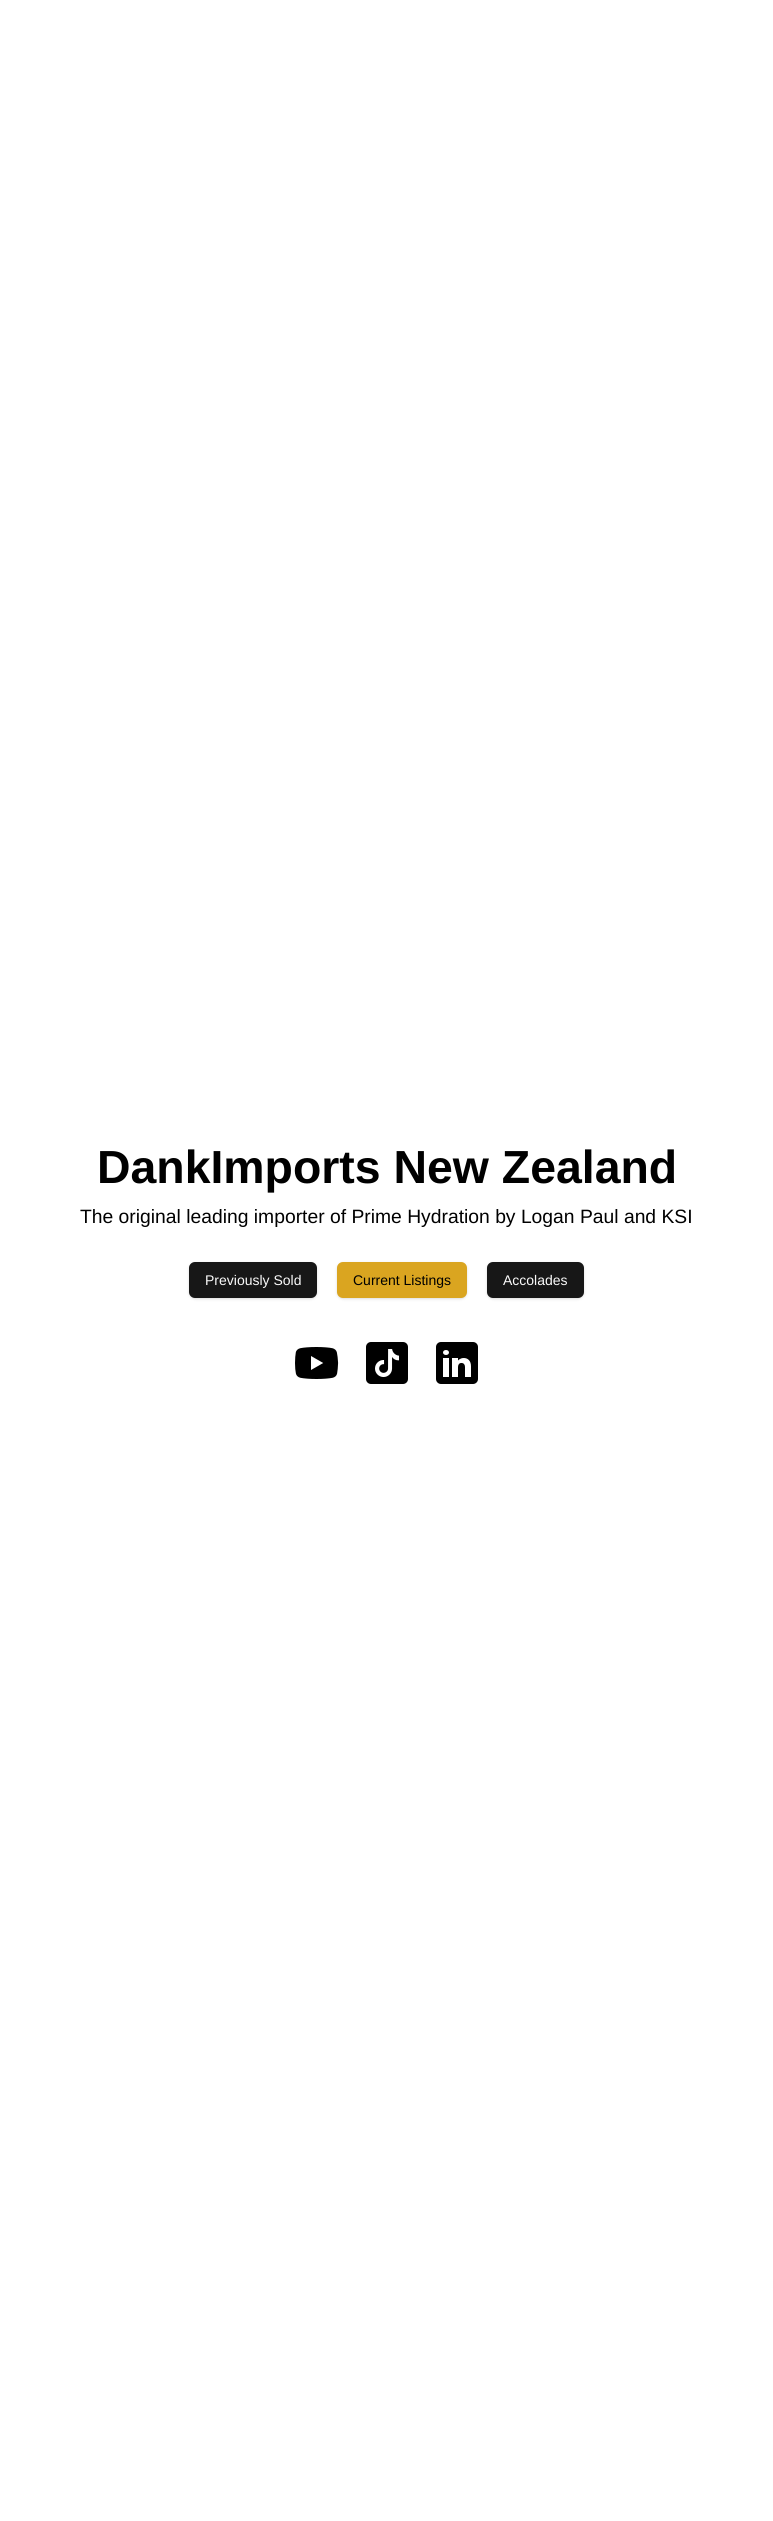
import math
import cairo

surface = cairo.ImageSurface(cairo.FORMAT_RGB24, 773, 2521)
cr = cairo.Context(surface)
options = cairo.FontOptions()
options.set_hint_metrics(cairo.HINT_METRICS_OFF)
options.set_hint_style(cairo.HINT_STYLE_NONE)
cr.set_font_options(options)
cr.set_miter_limit(4)


def rgb(code):
    cr.set_source_rgb(*(v / 255 for v in bytes.fromhex(code[-6:])))


def rrect(x, y, w, h, r):
    cr.new_sub_path()
    for i, (u, v) in enumerate([(x + w - r, y + h - r), (x + r, y + h - r), (x + r, y + r), (x + w - r, y + r)]):
        cr.arc(u, v, r, i * math.pi / 2, (i + 1) * math.pi / 2)
    cr.close_path()


def soft_shadow(x, y, w, h, r, blur, alpha):
    cr.push_group_with_content(cairo.CONTENT_ALPHA)
    cr.set_operator(cairo.OPERATOR_SOURCE)
    for i in range(15, -16, -2):
        e = blur * i / 6
        if min(w, h) + 2 * e > 0:
            cr.set_source_rgba(0, 0, 0, alpha * math.erfc((i - 1) / 8.5) / 2)
            rrect(x - e, y - e, w + 2 * e, h + 2 * e, max(0, min(r + e + blur * .6, min(w, h) / 2 + e)))
            cr.fill()
    cr.mask(cr.pop_group())


def image(path, x, y, w, h):
    cr.save()
    cr.set_source_surface(cairo.ImageSurface.create_from_png(path), x, y)
    cr.rectangle(x, y, w, h)
    cr.fill()
    cr.restore()


rgb("#ffffff")
cr.paint()
rgb("#000000")
soft_shadow(190, 1264, 126, 34, 5, 1, 0.1)
soft_shadow(189, 1263, 128, 36, 6, 1.5, 0.1)
rgb("#171717")
rrect(189, 1262, 128, 36, 6)
cr.fill()
rgb("#000000")
soft_shadow(338, 1264, 128, 34, 5, 1, 0.1)
soft_shadow(337, 1263, 130, 36, 6, 1.5, 0.1)
rgb("#daa520")
rrect(337, 1262, 130, 36, 6)
cr.fill()
rgb("#000000")
soft_shadow(488, 1264, 95, 34, 5, 1, 0.1)
soft_shadow(487, 1263, 97, 36, 6, 1.5, 0.1)
rgb("#171717")
rrect(487, 1262, 97, 36, 6)
cr.fill()
image("img/1.png", 295, 1347, 44, 32)
image("img/2.png", 366, 1342, 42, 42)
image("img/3.png", 436, 1342, 42, 42)
cr.select_font_face("Liberation Sans", cairo.FONT_SLANT_NORMAL, cairo.FONT_WEIGHT_BOLD)
cr.set_font_size(46.4)
rgb("#000000")
cr.move_to(97, 1183)
cr.show_text("DankImports New Zealand")
cr.select_font_face("Liberation Sans")
cr.set_font_size(19.3)
cr.move_to(80, 1223)
cr.show_text("The original leading importer of Prime Hydration by Logan Paul and KSI")
cr.set_font_size(14)
rgb("#fafafa")
cr.move_to(205, 1285)
cr.show_text("Previously Sold")
rgb("#000000")
cr.move_to(353, 1285)
cr.show_text("Current Listings")
rgb("#fafafa")
cr.move_to(503, 1285)
cr.show_text("Accolades")
surface.write_to_png("page.png")
